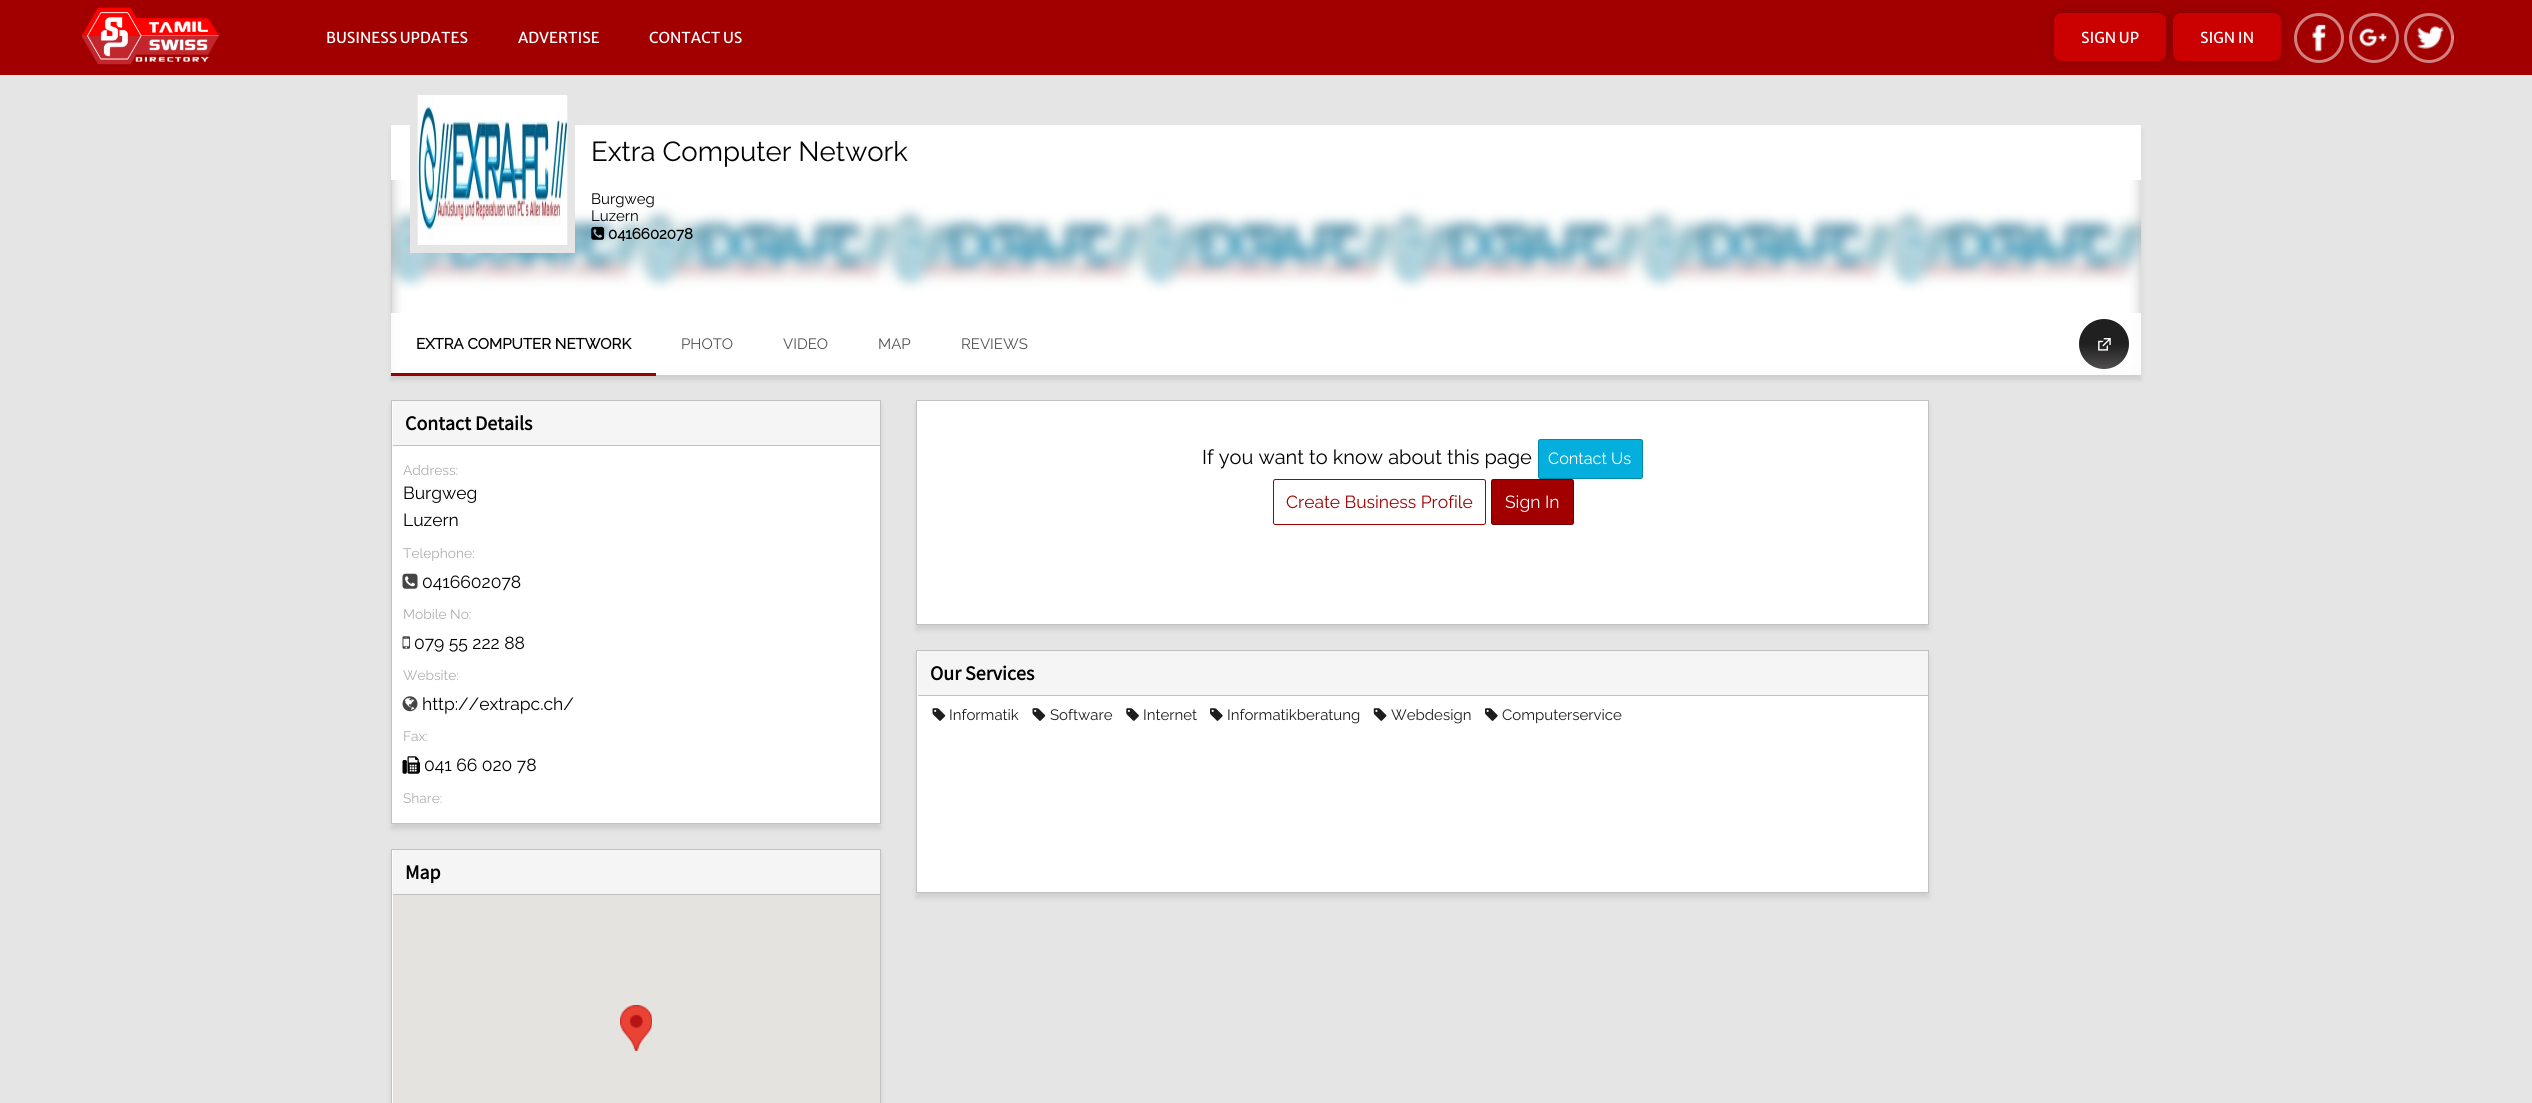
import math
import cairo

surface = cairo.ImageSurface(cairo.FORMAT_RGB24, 2532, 1103)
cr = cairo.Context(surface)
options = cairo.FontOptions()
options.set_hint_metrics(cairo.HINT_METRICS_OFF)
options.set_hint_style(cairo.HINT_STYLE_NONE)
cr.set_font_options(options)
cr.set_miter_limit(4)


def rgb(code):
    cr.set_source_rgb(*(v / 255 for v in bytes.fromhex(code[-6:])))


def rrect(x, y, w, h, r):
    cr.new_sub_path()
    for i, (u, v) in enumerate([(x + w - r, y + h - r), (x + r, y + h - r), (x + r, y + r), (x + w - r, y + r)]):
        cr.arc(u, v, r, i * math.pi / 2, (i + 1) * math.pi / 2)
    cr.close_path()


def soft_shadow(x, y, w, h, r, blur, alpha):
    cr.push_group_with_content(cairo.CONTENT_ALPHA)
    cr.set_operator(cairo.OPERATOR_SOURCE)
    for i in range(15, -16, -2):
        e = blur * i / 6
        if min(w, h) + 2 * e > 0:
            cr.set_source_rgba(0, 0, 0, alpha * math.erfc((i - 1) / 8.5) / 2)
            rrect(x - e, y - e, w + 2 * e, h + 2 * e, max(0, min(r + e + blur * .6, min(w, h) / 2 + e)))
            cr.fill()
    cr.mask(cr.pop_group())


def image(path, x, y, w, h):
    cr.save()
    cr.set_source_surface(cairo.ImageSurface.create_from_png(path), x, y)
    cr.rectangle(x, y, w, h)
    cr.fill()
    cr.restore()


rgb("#e5e5e5")
cr.paint()
rgb("#a20000")
cr.rectangle(0, 0, 2532, 75)
cr.fill()
image("img/1.png", 81, 7, 138, 58)
rgb("#000000")
soft_shadow(2054, 13, 112, 48, 8, 6, 0.2)
rgb("#cb0101")
rrect(2055.5, 14.5, 109, 45, 6.5)
cr.fill_preserve()
cr.set_line_width(3)
cr.stroke()
rgb("#000000")
soft_shadow(2173, 13, 108, 48, 8, 6, 0.2)
rgb("#cb0101")
rrect(2174.5, 14.5, 105, 45, 6.5)
cr.fill_preserve()
cr.stroke()
image("img/2.png", 2312, 24, 32, 28)
cr.arc(2319, 38, 23.5, 0, 2 * math.pi)
cr.set_source_rgba(1, 1, 1, 0.5)
cr.stroke()
image("img/3.png", 2349, 28, 38, 19)
cr.arc(2374, 38, 23.5, 0, 2 * math.pi)
cr.stroke()
image("img/4.png", 2417, 26, 37, 23)
cr.arc(2429, 38, 23.5, 0, 2 * math.pi)
cr.stroke()
rgb("#000000")
soft_shadow(391, 130, 1750, 250, 0, 2.5, 0.1)
rgb("#b9b9b9")
cr.rectangle(391, 180, 1750, 195)
cr.fill()
image("img/6.png", 391, 125, 1751, 250)
rgb("#ffffff")
cr.rectangle(391, 125, 1750, 55)
cr.fill()
cr.rectangle(414, 92, 157, 157)
rgb("#e5e5e5")
cr.set_line_width(8)
cr.stroke()
image("img/5.png", 417, 95, 151, 150)
image("img/7.png", 591, 226, 14, 14)
cr.set_source_rgba(1, 1, 1, 0.9)
cr.rectangle(391, 313, 1750, 62)
cr.fill()
rgb("#950202")
cr.rectangle(391, 373, 265, 3)
cr.fill()
gradient = cairo.LinearGradient(2104, 319, 2104, 369)
gradient.add_color_stop_rgba(0.5, 0.125, 0.125, 0.125, 1)
gradient.add_color_stop_rgba(1, 0.314, 0.306, 0.306, 1)
cr.set_source(gradient)
cr.arc(2104, 344, 25, 0, 2 * math.pi)
cr.fill()
image("img/8.png", 2098, 338, 13, 13)
rgb("#000000")
soft_shadow(391, 405, 490, 424, 0, 2.5, 0.1)
rgb("#ffffff")
cr.rectangle(391.5, 400.5, 489, 423)
cr.fill_preserve()
rgb("#c2c0c0")
cr.set_line_width(1)
cr.stroke()
rgb("#f5f5f5")
cr.rectangle(393, 401, 487, 44)
cr.fill()
rgb("#c2c0c0")
cr.rectangle(393, 445, 487, 1)
cr.fill()
image("img/9.png", 402, 573, 16, 16)
image("img/10.png", 402, 636, 8, 13)
image("img/11.png", 402, 696, 16, 16)
image("img/12.png", 402, 756, 18, 18)
rgb("#000000")
soft_shadow(391, 854, 490, 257, 0, 2.5, 0.1)
rgb("#ffffff")
cr.rectangle(392, 850, 1, 253)
cr.fill()
cr.rectangle(391.5, 849.5, 489, 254)
rgb("#c2c0c0")
cr.stroke()
for x, y, w, h, color in [
    (393, 850, 487, 44, "#f5f5f5"),
    (393, 894, 487, 1, "#c2c0c0"),
    (393, 895, 487, 208, "#e5e3df"),
]:
    rgb(color)
    cr.rectangle(x, y, w, h)
    cr.fill()
image("img/13.png", 620, 1005, 32, 46)
rgb("#000000")
soft_shadow(916, 405, 1013, 225, 0, 2.5, 0.1)
rgb("#ffffff")
cr.rectangle(916.5, 400.5, 1012, 224)
cr.fill_preserve()
rgb("#c2c0c0")
cr.stroke()
rgb("#04afdd")
rrect(1538.5, 439.5, 104, 39, 2)
cr.fill_preserve()
rgb("#0387ab")
cr.stroke()
rrect(1273.5, 479.5, 212, 45, 2)
rgb("#a20000")
cr.stroke()
rrect(1491.5, 479.5, 82, 45, 2)
cr.fill_preserve()
rgb("#6f0000")
cr.stroke()
rgb("#000000")
soft_shadow(916, 655, 1013, 243, 0, 2.5, 0.1)
rgb("#ffffff")
cr.rectangle(916.5, 650.5, 1012, 242)
cr.fill_preserve()
rgb("#c2c0c0")
cr.stroke()
rgb("#f5f5f5")
cr.rectangle(918, 651, 1010, 44)
cr.fill()
rgb("#c2c0c0")
cr.rectangle(918, 695, 1010, 1)
cr.fill()
image("img/14.png", 932, 708, 14, 13)
image("img/14.png", 1032, 708, 14, 13)
image("img/15.png", 1126, 708, 13, 13)
image("img/16.png", 1210, 708, 13, 13)
image("img/17.png", 1373, 708, 14, 13)
image("img/16.png", 1485, 708, 13, 13)
cr.select_font_face("Merriweather Sans")
cr.set_font_size(15)
rgb("#ffffff")
for x, y, s in [
    (326, 43, "BUSINESS UPDATES"),
    (518, 43, "ADVERTISE"),
    (649, 43, "CONTACT US"),
    (2081, 43, "SIGN UP"),
    (2200, 43, "SIGN IN"),
]:
    cr.move_to(x, y)
    cr.show_text(s)
cr.select_font_face("Raleway Thin")
cr.set_font_size(27.5)
rgb("#000000")
cr.move_to(591, 161)
cr.show_text("Extra Computer Network")
cr.set_font_size(15)
cr.move_to(591, 204)
cr.show_text("Burgweg")
cr.move_to(591, 221)
cr.show_text("Luzern")
cr.select_font_face("Raleway", cairo.FONT_SLANT_NORMAL, cairo.FONT_WEIGHT_BOLD)
cr.move_to(608, 239)
cr.show_text("0416602078")
cr.move_to(416, 349)
cr.show_text("EXTRA COMPUTER NETWORK")
cr.select_font_face("Raleway Thin")
rgb("#535353")
for x, y, s in [
    (681, 349, "PHOTO"),
    (783, 349, "VIDEO"),
    (878, 349, "MAP"),
    (961, 349, "REVIEWS"),
]:
    cr.move_to(x, y)
    cr.show_text(s)
cr.select_font_face("Source Sans Pro", cairo.FONT_SLANT_NORMAL, cairo.FONT_WEIGHT_BOLD)
cr.set_font_size(20)
rgb("#000000")
cr.move_to(405, 430)
cr.show_text("Contact Details")
cr.select_font_face("Raleway Thin")
cr.set_font_size(13.75)
rgb("#aeaeae")
cr.move_to(403, 475)
cr.show_text("Address:")
cr.set_font_size(17.5)
rgb("#000000")
cr.move_to(403, 499)
cr.show_text("Burgweg")
cr.move_to(403, 526)
cr.show_text("Luzern")
cr.set_font_size(13.75)
rgb("#aeaeae")
cr.move_to(403, 558)
cr.show_text("Telephone:")
cr.set_font_size(17.5)
rgb("#000000")
cr.move_to(422, 588)
cr.show_text("0416602078")
cr.set_font_size(13.75)
rgb("#aeaeae")
cr.move_to(403, 619)
cr.show_text("Mobile No:")
cr.set_font_size(17.5)
rgb("#000000")
cr.move_to(414, 649)
cr.show_text("079 55 222 88")
cr.set_font_size(13.75)
rgb("#aeaeae")
cr.move_to(403, 680)
cr.show_text("Website:")
cr.set_font_size(17.5)
rgb("#000000")
cr.move_to(422, 710)
cr.show_text("http://extrapc.ch/")
cr.set_font_size(13.75)
rgb("#aeaeae")
cr.move_to(403, 741)
cr.show_text("Fax:")
cr.set_font_size(17.5)
rgb("#000000")
cr.move_to(424, 771)
cr.show_text("041 66 020 78")
cr.set_font_size(13.75)
rgb("#aeaeae")
cr.move_to(403, 803)
cr.show_text("Share:")
cr.select_font_face("Source Sans Pro", cairo.FONT_SLANT_NORMAL, cairo.FONT_WEIGHT_BOLD)
cr.set_font_size(20)
rgb("#000000")
cr.move_to(405, 879)
cr.show_text("Map")
cr.select_font_face("Raleway Thin")
cr.move_to(1202, 464)
cr.show_text("If you want to know about this page")
cr.set_font_size(16.25)
rgb("#ffffff")
cr.move_to(1548, 464)
cr.show_text("Contact Us")
cr.set_font_size(17.5)
rgb("#a20000")
cr.move_to(1286, 508)
cr.show_text("Create Business Profile")
rgb("#ffffff")
cr.move_to(1505, 508)
cr.show_text("Sign In")
cr.select_font_face("Source Sans Pro", cairo.FONT_SLANT_NORMAL, cairo.FONT_WEIGHT_BOLD)
cr.set_font_size(20)
rgb("#000000")
cr.move_to(930, 680)
cr.show_text("Our Services")
cr.select_font_face("Raleway Thin")
cr.set_font_size(15)
rgb("#1d1d1d")
for x, y, s in [
    (949, 720, "Informatik"),
    (1050, 720, "Software"),
    (1143, 720, "Internet"),
    (1227, 720, "Informatikberatung"),
    (1391, 720, "Webdesign"),
    (1502, 720, "Computerservice"),
]:
    cr.move_to(x, y)
    cr.show_text(s)
surface.write_to_png("page.png")
